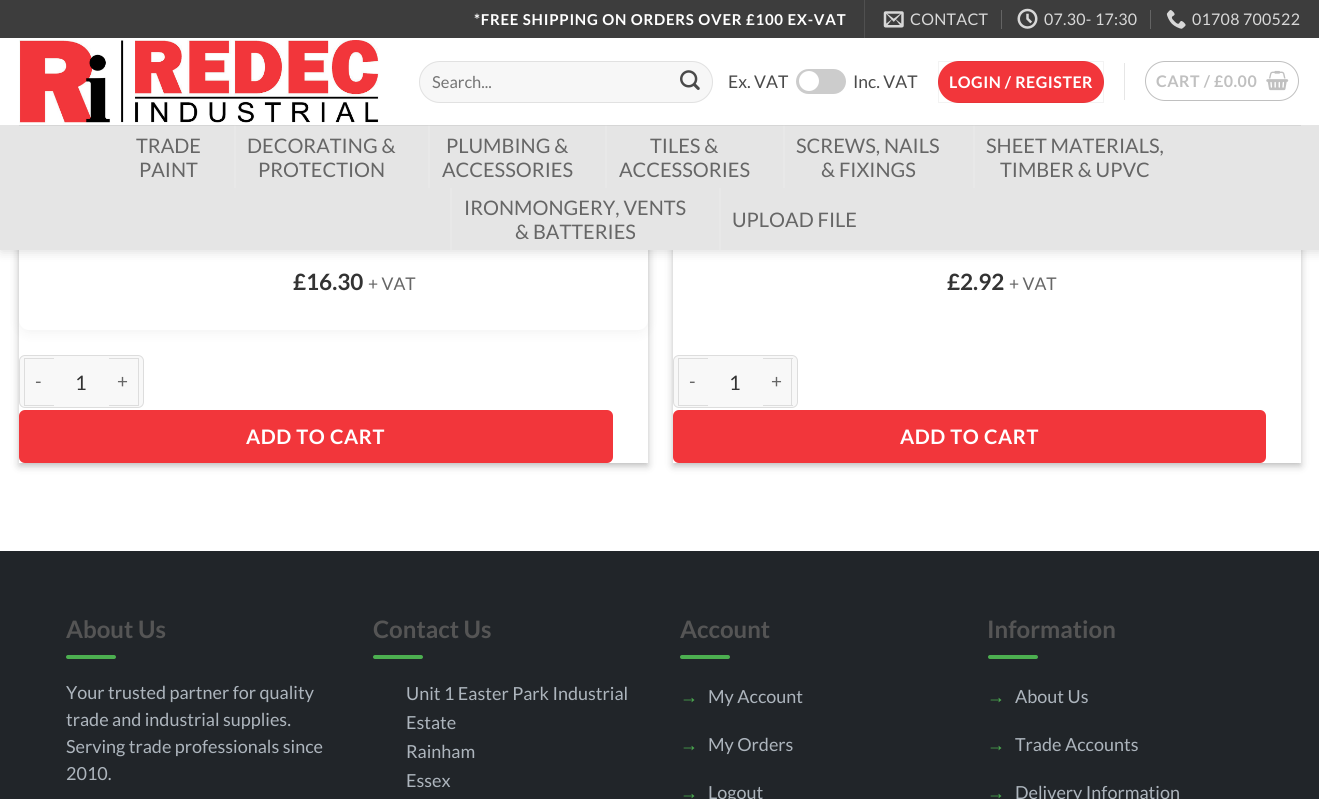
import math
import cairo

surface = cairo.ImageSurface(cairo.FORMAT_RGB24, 1319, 799)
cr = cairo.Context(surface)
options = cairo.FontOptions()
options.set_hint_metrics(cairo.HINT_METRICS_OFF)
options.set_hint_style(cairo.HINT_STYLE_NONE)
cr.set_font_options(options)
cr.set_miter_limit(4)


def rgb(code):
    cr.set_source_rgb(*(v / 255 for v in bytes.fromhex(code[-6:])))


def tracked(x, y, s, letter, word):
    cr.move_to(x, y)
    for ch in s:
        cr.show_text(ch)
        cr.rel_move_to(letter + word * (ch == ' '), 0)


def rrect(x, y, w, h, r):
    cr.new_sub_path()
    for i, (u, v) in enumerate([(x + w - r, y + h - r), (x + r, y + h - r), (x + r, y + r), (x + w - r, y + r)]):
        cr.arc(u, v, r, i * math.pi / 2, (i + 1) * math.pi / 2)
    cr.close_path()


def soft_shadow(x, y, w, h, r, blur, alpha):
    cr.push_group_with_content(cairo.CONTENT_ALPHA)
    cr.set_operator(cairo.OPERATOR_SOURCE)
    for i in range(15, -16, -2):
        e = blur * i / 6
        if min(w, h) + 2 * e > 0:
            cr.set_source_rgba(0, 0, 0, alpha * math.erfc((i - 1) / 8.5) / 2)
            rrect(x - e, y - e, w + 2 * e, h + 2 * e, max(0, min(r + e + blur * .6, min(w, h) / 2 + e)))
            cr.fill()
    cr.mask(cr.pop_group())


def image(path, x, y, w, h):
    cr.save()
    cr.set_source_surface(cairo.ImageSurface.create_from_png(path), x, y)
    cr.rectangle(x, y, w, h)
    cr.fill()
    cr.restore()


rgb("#ffffff")
cr.paint()
rgb("#000000")
soft_shadow(19, -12, 629, 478, 0, 4, 0.23)
soft_shadow(24, -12, 619, 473, 0, 4, 0.16)
rgb("#ffffff")
cr.rectangle(19, 320, 629, 143)
cr.fill()
rgb("#000000")
soft_shadow(19, -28, 629, 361, 10, 6, 0.05)
rgb("#ffffff")
rrect(19, -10, 629, 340, 10)
cr.fill()
rgb("#000000")
soft_shadow(673, -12, 628, 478, 0, 4, 0.23)
soft_shadow(678, -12, 618, 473, 0, 4, 0.16)
rgb("#ffffff")
cr.rectangle(673, 250, 628, 213)
cr.fill()
rgb("#000000")
soft_shadow(1, 1, 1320, 250, 0, 6, 0.15)
rgb("#3d3d3d")
cr.rectangle(0, 0, 1319, 38)
cr.fill()
rgb("#505050")
cr.rectangle(864, 0, 1, 38)
cr.fill()
image("img/1.png", 883, 11, 21, 17)
rgb("#646464")
cr.rectangle(1001, 10, 1, 19)
cr.fill()
image("img/2.png", 1017, 8, 21, 21)
cr.rectangle(1150, 10, 1, 19)
cr.fill()
image("img/3.png", 1166, 10, 20, 19)
rgb("#ffffff")
cr.rectangle(0, 38, 1319, 87)
cr.fill()
image("img/4.png", 19, 40, 360, 84)
rgb("#f7f7f7")
rrect(419, 61, 294, 42, 21)
cr.fill()
rrect(419.5, 61.5, 293, 41, 20.5)
cr.set_source_rgba(0, 0, 0, 0.09)
cr.set_line_width(1)
cr.stroke()
image("img/5.png", 680, 70, 20, 20)
rgb("#cccccc")
rrect(796, 69, 50, 25, 12.5)
cr.fill()
rgb("#ffffff")
cr.arc(809, 81, 10, 0, 2 * math.pi)
cr.fill()
rgb("#f2363b")
rrect(938, 61, 166, 42, 21)
cr.fill()
cr.rectangle(938.5, 61.5, 165, 41)
cr.set_source_rgba(0, 0, 0, 0.05)
cr.stroke()
rgb("#e6e6e6")
cr.rectangle(1124, 63, 1, 37)
cr.fill()
rrect(1145.5, 61.5, 153, 39, 19.5)
rgb("#c0c0c0")
cr.stroke()
image("img/6.png", 1266, 70, 23, 21)
rgb("#e5e5e5")
cr.rectangle(0, 125, 1319, 125)
cr.fill()
rgb("#e8e8e8")
cr.rectangle(234, 125, 2, 63)
cr.rectangle(428, 125, 2, 63)
cr.rectangle(605, 125, 2, 63)
cr.rectangle(783, 125, 2, 63)
cr.rectangle(973, 125, 2, 63)
cr.fill()
cr.set_source_rgba(0.29, 0.29, 0.29, 0.1)
cr.rectangle(19, 125, 1282, 1)
cr.fill()
rgb("#e8e8e8")
cr.rectangle(450, 188, 2, 62)
cr.rectangle(719, 188, 2, 62)
cr.fill()
rgb("#f8f8f8")
rrect(19.5, 355.5, 124, 52, 5.5)
cr.fill_preserve()
rgb("#dddddd")
cr.stroke()
for x, y, w, h, color in [
    (24, 358, 30, 1, "#dddddd"),
    (24, 405, 30, 1, "#dddddd"),
    (24, 358, 1, 48, "#dddddd"),
    (109, 358, 30, 1, "#dddddd"),
    (138, 358, 1, 48, "#dddddd"),
    (109, 405, 30, 1, "#dddddd"),
]:
    rgb(color)
    cr.rectangle(x, y, w, h)
    cr.fill()
rgb("#f2363b")
rrect(19, 410, 594, 53, 6)
cr.fill()
rgb("#f8f8f8")
rrect(673.5, 355.5, 124, 52, 5.5)
cr.fill_preserve()
rgb("#dddddd")
cr.stroke()
for x, y, w, h, color in [
    (678, 358, 30, 1, "#dddddd"),
    (678, 405, 30, 1, "#dddddd"),
    (678, 358, 1, 48, "#dddddd"),
    (763, 358, 30, 1, "#dddddd"),
    (791, 358, 1, 48, "#dddddd"),
    (763, 405, 30, 1, "#dddddd"),
]:
    rgb(color)
    cr.rectangle(x, y, w, h)
    cr.fill()
rgb("#f2363b")
rrect(673, 410, 593, 53, 6)
cr.fill()
rgb("#212529")
cr.rectangle(0, 551, 1319, 248)
cr.fill()
rgb("#4caf50")
rrect(66, 655, 50, 4, 2)
cr.fill()
rrect(373, 655, 50, 4, 2)
cr.fill()
rrect(680, 655, 50, 4, 2)
cr.fill()
rrect(988, 655, 50, 4, 2)
cr.fill()
cr.select_font_face("Lato", cairo.FONT_SLANT_NORMAL, cairo.FONT_WEIGHT_BOLD)
cr.set_font_size(15)
rgb("#ffffff")
tracked(474, 25, "*FREE SHIPPING ON ORDERS OVER £100 EX-VAT", 0.75, 0)
cr.select_font_face("Lato")
cr.set_font_size(16)
rgb("#d8d8d8")
for x, y, s in [
    (910, 25, "CONTACT"),
    (1044, 25, "07.30- 17:30"),
    (1192, 25, "01708 700522"),
]:
    tracked(x, y, s, 0.25, 0)
cr.set_font_size(16.5)
rgb("#757575")
cr.move_to(432, 88)
cr.show_text("Search...")
cr.set_font_size(17.5)
rgb("#4a4a4a")
cr.move_to(728, 88)
cr.show_text("Ex. VAT")
cr.move_to(853, 88)
cr.show_text("Inc. VAT")
cr.select_font_face("Lato", cairo.FONT_SLANT_NORMAL, cairo.FONT_WEIGHT_BOLD)
cr.set_font_size(16)
rgb("#ffffff")
tracked(949, 88, "LOGIN / REGISTER", 0.5, 0)
rgb("#c0c0c0")
tracked(1156, 87, "CART / £0.00", 0.5, 0)
cr.select_font_face("Lato")
cr.set_font_size(20)
rgb("#666666")
for x, y, s in [
    (136, 153, "TRADE"),
    (139, 177, "PAINT"),
    (247, 153, "DECORATING &"),
    (258, 177, "PROTECTION"),
    (446, 153, "PLUMBING &"),
    (442, 177, "ACCESSORIES"),
    (650, 153, "TILES &"),
    (619, 177, "ACCESSORIES"),
    (796, 153, "SCREWS, NAILS"),
    (821, 177, "& FIXINGS"),
    (986, 153, "SHEET MATERIALS,"),
    (1000, 177, "TIMBER & UPVC"),
    (464, 215, "IRONMONGERY, VENTS"),
    (515, 239, "& BATTERIES"),
    (732, 227, "UPLOAD FILE"),
]:
    cr.move_to(x, y)
    cr.show_text(s)
cr.select_font_face("Lato", cairo.FONT_SLANT_NORMAL, cairo.FONT_WEIGHT_BOLD)
cr.set_font_size(22.5)
rgb("#333333")
cr.move_to(293, 290)
cr.show_text("£16.30")
cr.select_font_face("Lato")
cr.set_font_size(17.5)
rgb("#666666")
cr.move_to(368, 290)
cr.show_text("+ VAT")
cr.set_font_size(19)
tracked(35, 388, "-", 1, 0)
cr.set_font_size(20)
rgb("#333333")
cr.move_to(75, 390)
cr.show_text("1")
cr.set_font_size(19)
rgb("#666666")
tracked(117, 388, "+", 1, 0)
cr.select_font_face("Lato", cairo.FONT_SLANT_NORMAL, cairo.FONT_WEIGHT_BOLD)
cr.set_font_size(20)
rgb("#ffffff")
tracked(246, 444, "ADD TO CART", 0.6, 0)
cr.set_font_size(22.5)
rgb("#333333")
cr.move_to(947, 290)
cr.show_text("£2.92")
cr.select_font_face("Lato")
cr.set_font_size(17.5)
rgb("#666666")
cr.move_to(1009, 290)
cr.show_text("+ VAT")
cr.set_font_size(19)
tracked(689, 388, "-", 1, 0)
cr.set_font_size(20)
rgb("#333333")
cr.move_to(729, 390)
cr.show_text("1")
cr.set_font_size(19)
rgb("#666666")
tracked(771, 388, "+", 1, 0)
cr.select_font_face("Lato", cairo.FONT_SLANT_NORMAL, cairo.FONT_WEIGHT_BOLD)
cr.set_font_size(20)
rgb("#ffffff")
tracked(900, 444, "ADD TO CART", 0.6, 0)
cr.set_font_size(24)
rgb("#555555")
cr.move_to(66, 638)
cr.show_text("About Us")
cr.select_font_face("Lato")
cr.set_font_size(18)
rgb("#adb5bd")
for x, y, s in [
    (66, 699, "Your trusted partner for quality"),
    (66, 726, "trade and industrial supplies."),
    (66, 753, "Serving trade professionals since"),
    (66, 780, "2010."),
]:
    cr.move_to(x, y)
    cr.show_text(s)
cr.select_font_face("Lato", cairo.FONT_SLANT_NORMAL, cairo.FONT_WEIGHT_BOLD)
cr.set_font_size(24)
rgb("#555555")
cr.move_to(373, 638)
cr.show_text("Contact Us")
cr.select_font_face("Lato")
cr.set_font_size(18)
rgb("#adb5bd")
for x, y, s in [
    (406, 700, "Unit 1 Easter Park Industrial"),
    (406, 729, "Estate"),
    (406, 758, "Rainham"),
    (406, 787, "Essex"),
]:
    cr.move_to(x, y)
    cr.show_text(s)
cr.select_font_face("Lato", cairo.FONT_SLANT_NORMAL, cairo.FONT_WEIGHT_BOLD)
cr.set_font_size(24)
rgb("#555555")
cr.move_to(680, 638)
cr.show_text("Account")
cr.select_font_face("Liberation Sans")
cr.set_font_size(18)
rgb("#4caf50")
cr.move_to(680, 703)
cr.show_text("→")
cr.select_font_face("Lato")
rgb("#adb5bd")
cr.move_to(708, 703)
cr.show_text("My Account")
cr.select_font_face("Liberation Sans")
rgb("#4caf50")
cr.move_to(680, 751)
cr.show_text("→")
cr.select_font_face("Lato")
rgb("#adb5bd")
cr.move_to(708, 751)
cr.show_text("My Orders")
cr.select_font_face("Liberation Sans")
rgb("#4caf50")
cr.move_to(680, 799)
cr.show_text("→")
cr.select_font_face("Lato")
rgb("#adb5bd")
cr.move_to(708, 799)
cr.show_text("Logout")
cr.select_font_face("Lato", cairo.FONT_SLANT_NORMAL, cairo.FONT_WEIGHT_BOLD)
cr.set_font_size(24)
rgb("#555555")
cr.move_to(987, 638)
cr.show_text("Information")
cr.select_font_face("Liberation Sans")
cr.set_font_size(18)
rgb("#4caf50")
cr.move_to(987, 703)
cr.show_text("→")
cr.select_font_face("Lato")
rgb("#adb5bd")
cr.move_to(1015, 703)
cr.show_text("About Us")
cr.select_font_face("Liberation Sans")
rgb("#4caf50")
cr.move_to(987, 751)
cr.show_text("→")
cr.select_font_face("Lato")
rgb("#adb5bd")
cr.move_to(1015, 751)
cr.show_text("Trade Accounts")
cr.select_font_face("Liberation Sans")
rgb("#4caf50")
cr.move_to(987, 799)
cr.show_text("→")
cr.select_font_face("Lato")
rgb("#adb5bd")
cr.move_to(1015, 799)
cr.show_text("Delivery Information")
surface.write_to_png("page.png")
